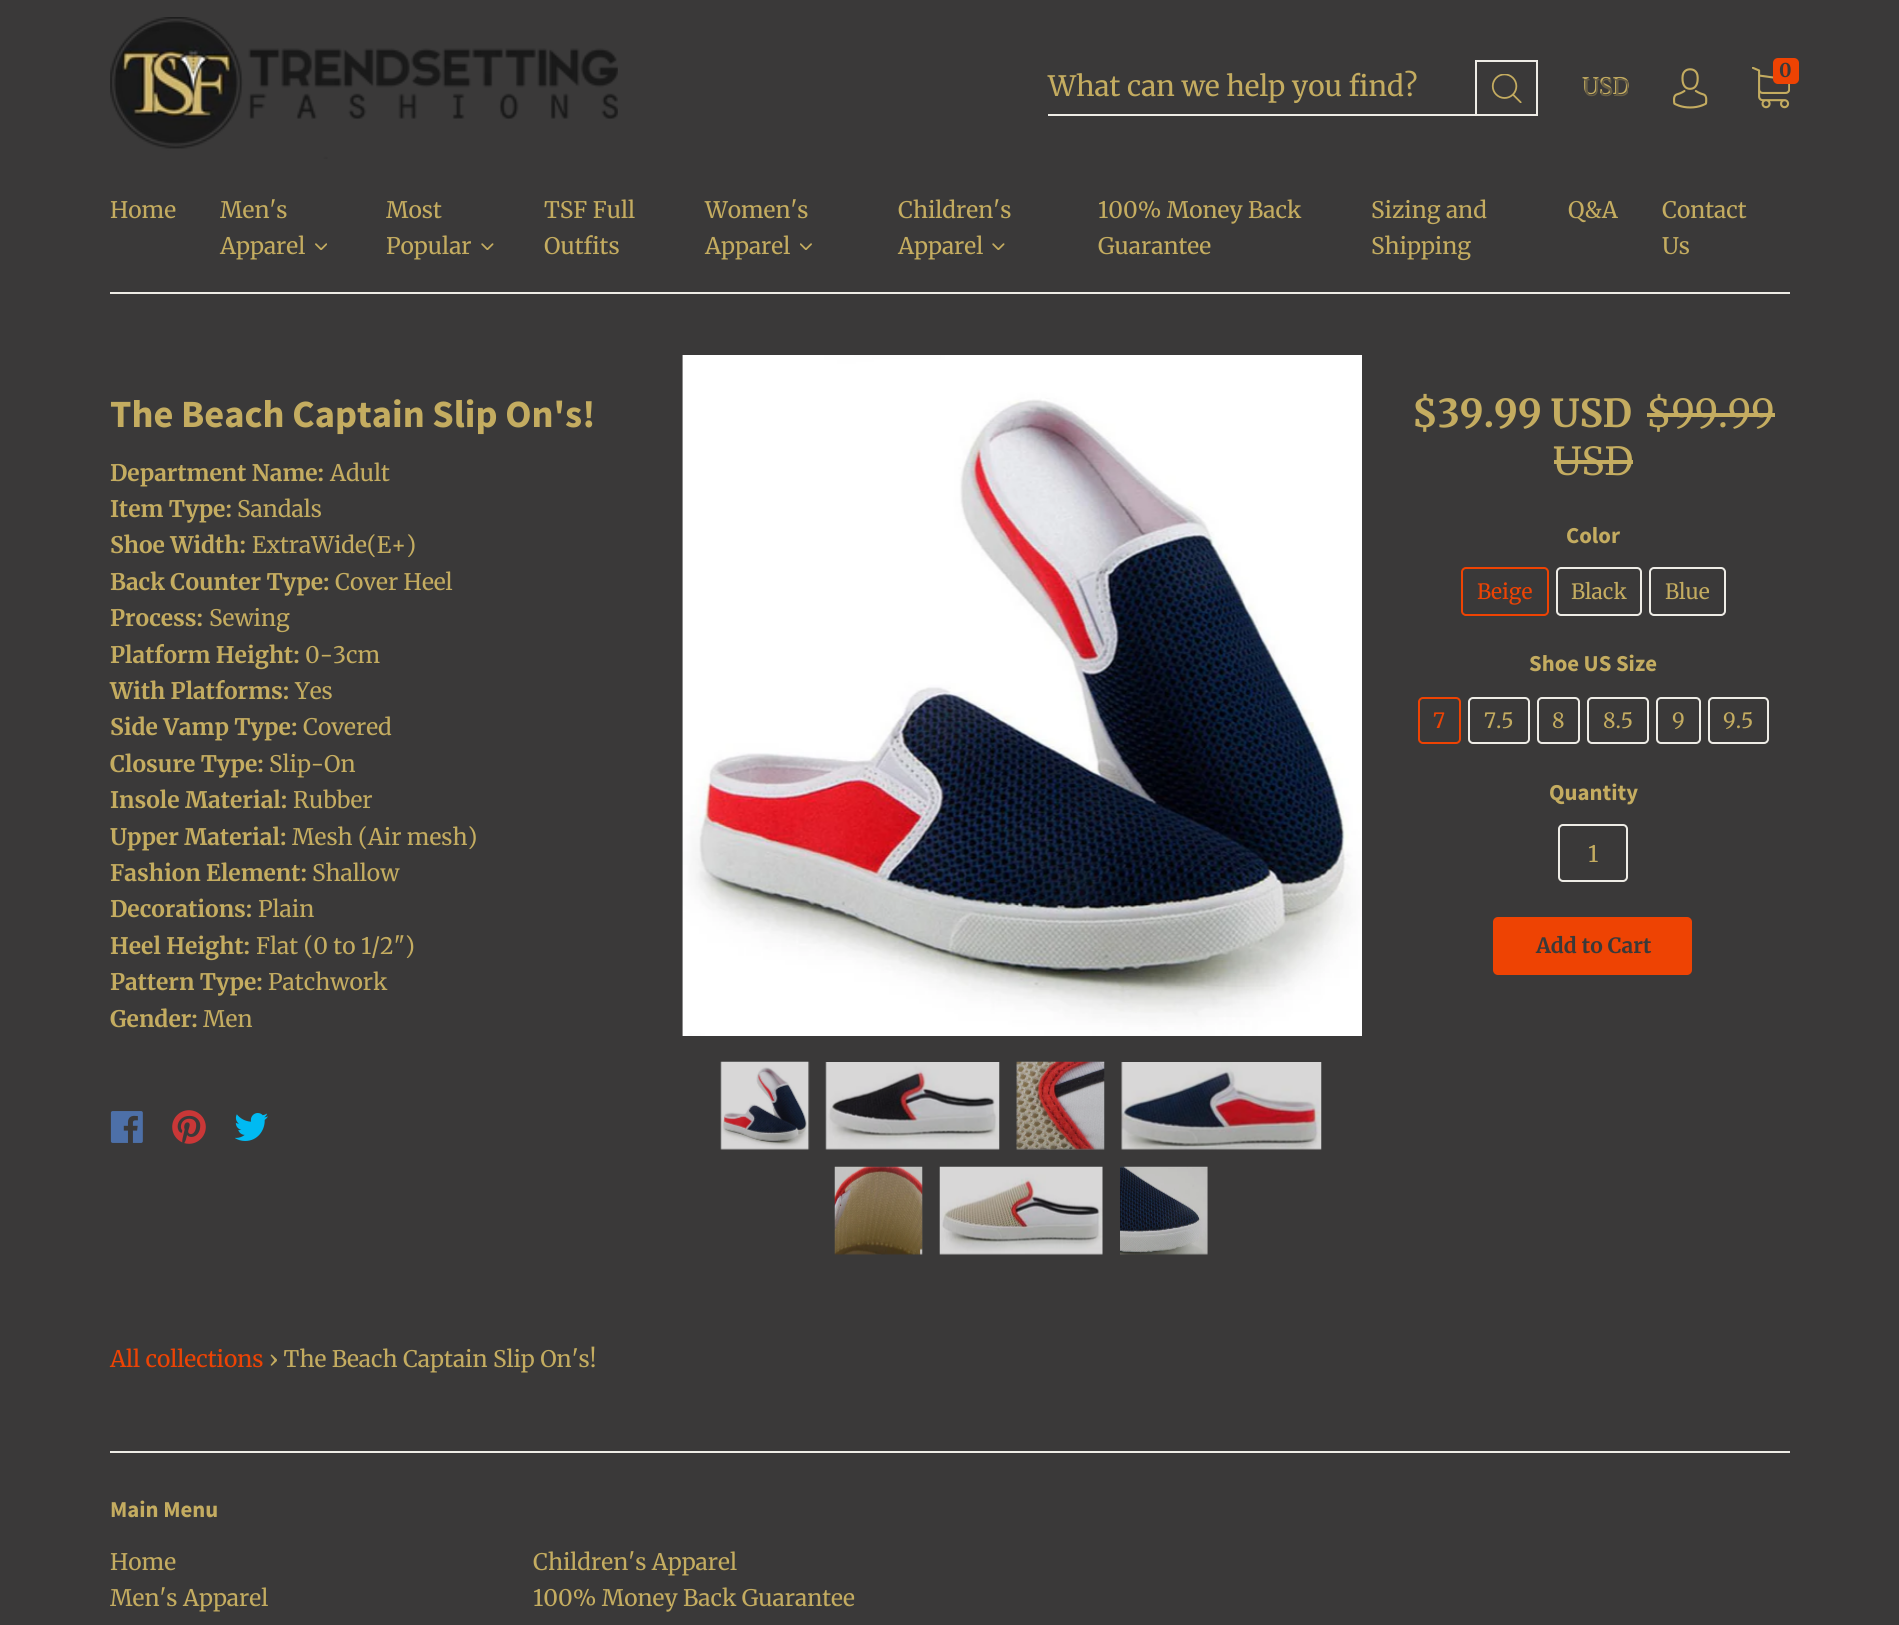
import math
import cairo

surface = cairo.ImageSurface(cairo.FORMAT_RGB24, 1899, 1625)
cr = cairo.Context(surface)
options = cairo.FontOptions()
options.set_hint_metrics(cairo.HINT_METRICS_OFF)
options.set_hint_style(cairo.HINT_STYLE_NONE)
cr.set_font_options(options)
cr.set_miter_limit(4)


def rgb(code):
    cr.set_source_rgb(*(v / 255 for v in bytes.fromhex(code[-6:])))


def rrect(x, y, w, h, r):
    cr.new_sub_path()
    for i, (u, v) in enumerate([(x + w - r, y + h - r), (x + r, y + h - r), (x + r, y + r), (x + w - r, y + r)]):
        cr.arc(u, v, r, i * math.pi / 2, (i + 1) * math.pi / 2)
    cr.close_path()


def image(path, x, y, w, h):
    cr.save()
    cr.set_source_surface(cairo.ImageSurface.create_from_png(path), x, y)
    cr.rectangle(x, y, w, h)
    cr.fill()
    cr.restore()


rgb("#3a3939")
cr.paint()
image("img/1.png", 110, 17, 508, 142)
rgb("#eeece6")
cr.rectangle(1048, 114, 427, 2)
cr.fill()
cr.rectangle(1476, 61, 61, 54)
cr.stroke()
image("img/2.png", 1491, 74, 31, 29)
image("img/3.png", 1673, 68, 35, 41)
image("img/4.png", 1752, 67, 38, 42)
rgb("#ee4303")
rrect(1773, 58, 26, 26, 5)
cr.fill()
image("img/5.png", 315, 243, 12, 7)
image("img/6.png", 481, 243, 13, 7)
image("img/7.png", 800, 243, 12, 7)
image("img/6.png", 992, 243, 13, 7)
rgb("#eeece6")
cr.rectangle(110, 292, 1680, 2)
cr.fill()
image("img/8.png", 110, 1111, 33, 32)
image("img/9.png", 172, 1110, 34, 34)
image("img/10.png", 235, 1113, 33, 28)
image("img/11.png", 682, 355, 680, 681)
image("img/12.png", 720, 1061, 90, 89)
image("img/13.png", 825, 1062, 175, 88)
image("img/14.png", 1016, 1061, 89, 89)
image("img/15.png", 1121, 1062, 201, 88)
image("img/16.png", 834, 1166, 89, 89)
image("img/17.png", 939, 1166, 164, 89)
image("img/18.png", 1120, 1166, 88, 89)
rgb("#c4ac60")
cr.rectangle(1647, 413, 128, 4)
cr.fill()
cr.rectangle(1554, 460, 79, 4)
cr.fill()
rrect(1462, 568, 86, 47, 4)
rgb("#ee4303")
cr.stroke()
rrect(1557, 568, 84, 47, 4)
rgb("#eeece6")
cr.stroke()
rrect(1650, 568, 75, 47, 4)
cr.stroke()
rrect(1419, 698, 41, 45, 4)
rgb("#ee4303")
cr.stroke()
rrect(1469, 698, 60, 45, 4)
rgb("#eeece6")
cr.stroke()
rrect(1538, 698, 41, 45, 4)
cr.stroke()
rrect(1588, 698, 60, 45, 4)
cr.stroke()
rrect(1657, 698, 43, 45, 4)
cr.stroke()
rrect(1709, 698, 59, 45, 4)
cr.stroke()
rrect(1559, 825, 68, 56, 4)
cr.stroke()
rgb("#ee4303")
rrect(1493, 917, 199, 58, 5)
cr.fill()
rgb("#eeece6")
cr.rectangle(110, 1451, 1680, 2)
cr.fill()
cr.select_font_face("Merriweather")
cr.set_font_size(28)
rgb("#c4ac60")
cr.move_to(1048, 96)
cr.show_text("What can we help you find?")
cr.set_font_size(22.75)
cr.move_to(1582, 94)
cr.show_text("USD")
cr.save()
cr.rectangle(1584, 72, 44, 35)
cr.clip()
rgb("#665d45")
cr.move_to(1583, 96)
cr.show_text("USD")
cr.restore()
cr.select_font_face("Merriweather", cairo.FONT_SLANT_NORMAL, cairo.FONT_WEIGHT_BOLD)
cr.set_font_size(19)
rgb("#3a3939")
cr.move_to(1779, 77)
cr.show_text("0")
cr.select_font_face("Merriweather")
cr.set_font_size(22.75)
rgb("#c4ac60")
for x, y, s in [
    (110, 218, "Home"),
    (220, 218, "Men's"),
    (220, 254, "Apparel"),
    (386, 218, "Most"),
    (386, 254, "Popular"),
    (544, 218, "TSF Full"),
    (544, 254, "Outfits"),
    (705, 218, "Women's"),
    (705, 254, "Apparel"),
    (898, 218, "Children's"),
    (898, 254, "Apparel"),
    (1098, 218, "100% Money Back"),
    (1098, 254, "Guarantee"),
    (1371, 218, "Sizing and"),
    (1371, 254, "Shipping"),
    (1568, 218, "Q&A"),
    (1662, 218, "Contact"),
    (1662, 254, "Us"),
]:
    cr.move_to(x, y)
    cr.show_text(s)
cr.select_font_face("Source Sans Pro", cairo.FONT_SLANT_NORMAL, cairo.FONT_WEIGHT_BOLD)
cr.set_font_size(38.5)
cr.move_to(110, 427)
cr.show_text("The Beach Captain Slip On's!")
cr.select_font_face("Merriweather", cairo.FONT_SLANT_NORMAL, cairo.FONT_WEIGHT_BOLD)
cr.set_font_size(22.75)
cr.move_to(110, 481)
cr.show_text("Department Name:")
cr.select_font_face("Merriweather")
cr.move_to(330, 481)
cr.show_text("Adult")
cr.select_font_face("Merriweather", cairo.FONT_SLANT_NORMAL, cairo.FONT_WEIGHT_BOLD)
cr.move_to(110, 517)
cr.show_text("Item Type:")
cr.select_font_face("Merriweather")
cr.move_to(237, 517)
cr.show_text("Sandals")
cr.select_font_face("Merriweather", cairo.FONT_SLANT_NORMAL, cairo.FONT_WEIGHT_BOLD)
cr.move_to(110, 553)
cr.show_text("Shoe Width:")
cr.select_font_face("Merriweather")
cr.move_to(252, 553)
cr.show_text("ExtraWide(E+)")
cr.select_font_face("Merriweather", cairo.FONT_SLANT_NORMAL, cairo.FONT_WEIGHT_BOLD)
cr.move_to(110, 590)
cr.show_text("Back Counter Type:")
cr.select_font_face("Merriweather")
cr.move_to(335, 590)
cr.show_text("Cover Heel")
cr.select_font_face("Merriweather", cairo.FONT_SLANT_NORMAL, cairo.FONT_WEIGHT_BOLD)
cr.move_to(110, 626)
cr.show_text("Process:")
cr.select_font_face("Merriweather")
cr.move_to(209, 626)
cr.show_text("Sewing")
cr.select_font_face("Merriweather", cairo.FONT_SLANT_NORMAL, cairo.FONT_WEIGHT_BOLD)
cr.move_to(110, 663)
cr.show_text("Platform Height:")
cr.select_font_face("Merriweather")
cr.move_to(305, 663)
cr.show_text("0-3cm")
cr.select_font_face("Merriweather", cairo.FONT_SLANT_NORMAL, cairo.FONT_WEIGHT_BOLD)
cr.move_to(110, 699)
cr.show_text("With Platforms:")
cr.select_font_face("Merriweather")
cr.move_to(295, 699)
cr.show_text("Yes")
cr.select_font_face("Merriweather", cairo.FONT_SLANT_NORMAL, cairo.FONT_WEIGHT_BOLD)
cr.move_to(110, 735)
cr.show_text("Side Vamp Type:")
cr.select_font_face("Merriweather")
cr.move_to(303, 735)
cr.show_text("Covered")
cr.select_font_face("Merriweather", cairo.FONT_SLANT_NORMAL, cairo.FONT_WEIGHT_BOLD)
cr.move_to(110, 772)
cr.show_text("Closure Type:")
cr.select_font_face("Merriweather")
cr.move_to(269, 772)
cr.show_text("Slip-On")
cr.select_font_face("Merriweather", cairo.FONT_SLANT_NORMAL, cairo.FONT_WEIGHT_BOLD)
cr.move_to(110, 808)
cr.show_text("Insole Material:")
cr.select_font_face("Merriweather")
cr.move_to(293, 808)
cr.show_text("Rubber")
cr.select_font_face("Merriweather", cairo.FONT_SLANT_NORMAL, cairo.FONT_WEIGHT_BOLD)
cr.move_to(110, 845)
cr.show_text("Upper Material:")
cr.select_font_face("Merriweather")
cr.move_to(292, 845)
cr.show_text("Mesh (Air mesh)")
cr.select_font_face("Merriweather", cairo.FONT_SLANT_NORMAL, cairo.FONT_WEIGHT_BOLD)
cr.move_to(110, 881)
cr.show_text("Fashion Element:")
cr.select_font_face("Merriweather")
cr.move_to(312, 881)
cr.show_text("Shallow")
cr.select_font_face("Merriweather", cairo.FONT_SLANT_NORMAL, cairo.FONT_WEIGHT_BOLD)
cr.move_to(110, 917)
cr.show_text("Decorations:")
cr.select_font_face("Merriweather")
cr.move_to(258, 917)
cr.show_text("Plain")
cr.select_font_face("Merriweather", cairo.FONT_SLANT_NORMAL, cairo.FONT_WEIGHT_BOLD)
cr.move_to(110, 954)
cr.show_text("Heel Height:")
cr.select_font_face("Merriweather")
cr.move_to(256, 954)
cr.show_text("Flat (0 to 1/2\")")
cr.select_font_face("Merriweather", cairo.FONT_SLANT_NORMAL, cairo.FONT_WEIGHT_BOLD)
cr.move_to(110, 990)
cr.show_text("Pattern Type:")
cr.select_font_face("Merriweather")
cr.move_to(268, 990)
cr.show_text("Patchwork")
cr.select_font_face("Merriweather", cairo.FONT_SLANT_NORMAL, cairo.FONT_WEIGHT_BOLD)
cr.move_to(110, 1027)
cr.show_text("Gender:")
cr.select_font_face("Merriweather")
cr.move_to(203, 1027)
cr.show_text("Men")
cr.select_font_face("Merriweather", cairo.FONT_SLANT_NORMAL, cairo.FONT_WEIGHT_BOLD)
cr.set_font_size(38.5)
cr.move_to(1412, 427)
cr.show_text("$39.99 USD")
cr.select_font_face("Merriweather")
cr.move_to(1646, 427)
cr.show_text("$99.99")
cr.move_to(1553, 475)
cr.show_text("USD")
cr.select_font_face("Source Sans Pro", cairo.FONT_SLANT_NORMAL, cairo.FONT_WEIGHT_BOLD)
cr.set_font_size(22.75)
cr.move_to(1566, 543)
cr.show_text("Color")
cr.select_font_face("Merriweather")
cr.set_font_size(21)
rgb("#ee4303")
cr.move_to(1477, 599)
cr.show_text("Beige")
rgb("#c4ac60")
cr.move_to(1571, 599)
cr.show_text("Black")
cr.move_to(1665, 599)
cr.show_text("Blue")
cr.select_font_face("Source Sans Pro", cairo.FONT_SLANT_NORMAL, cairo.FONT_WEIGHT_BOLD)
cr.set_font_size(22.75)
cr.move_to(1529, 671)
cr.show_text("Shoe US Size")
cr.select_font_face("Merriweather")
cr.set_font_size(21)
rgb("#ee4303")
cr.move_to(1433, 728)
cr.show_text("7")
rgb("#c4ac60")
for x, y, s in [
    (1484, 728, "7.5"),
    (1552, 728, "8"),
    (1603, 728, "8.5"),
    (1672, 728, "9"),
    (1723, 728, "9.5"),
]:
    cr.move_to(x, y)
    cr.show_text(s)
cr.select_font_face("Source Sans Pro", cairo.FONT_SLANT_NORMAL, cairo.FONT_WEIGHT_BOLD)
cr.set_font_size(22.75)
cr.move_to(1549, 800)
cr.show_text("Quantity")
cr.select_font_face("Merriweather")
cr.move_to(1588, 862)
cr.show_text("1")
cr.select_font_face("Merriweather", cairo.FONT_SLANT_NORMAL, cairo.FONT_WEIGHT_BOLD)
cr.set_font_size(21)
rgb("#3a3939")
cr.move_to(1536, 953)
cr.show_text("Add to Cart")
cr.select_font_face("Merriweather")
cr.set_font_size(22.75)
rgb("#ee4303")
cr.move_to(110, 1367)
cr.show_text("All collections")
rgb("#c4ac60")
cr.move_to(269, 1367)
cr.show_text("› The Beach Captain Slip On's!")
cr.select_font_face("Source Sans Pro", cairo.FONT_SLANT_NORMAL, cairo.FONT_WEIGHT_BOLD)
cr.move_to(110, 1517)
cr.show_text("Main Menu")
cr.select_font_face("Merriweather")
for x, y, s in [
    (110, 1570, "Home"),
    (533, 1570, "Children's Apparel"),
    (110, 1606, "Men's Apparel"),
    (533, 1606, "100% Money Back Guarantee"),
]:
    cr.move_to(x, y)
    cr.show_text(s)
surface.write_to_png("page.png")
